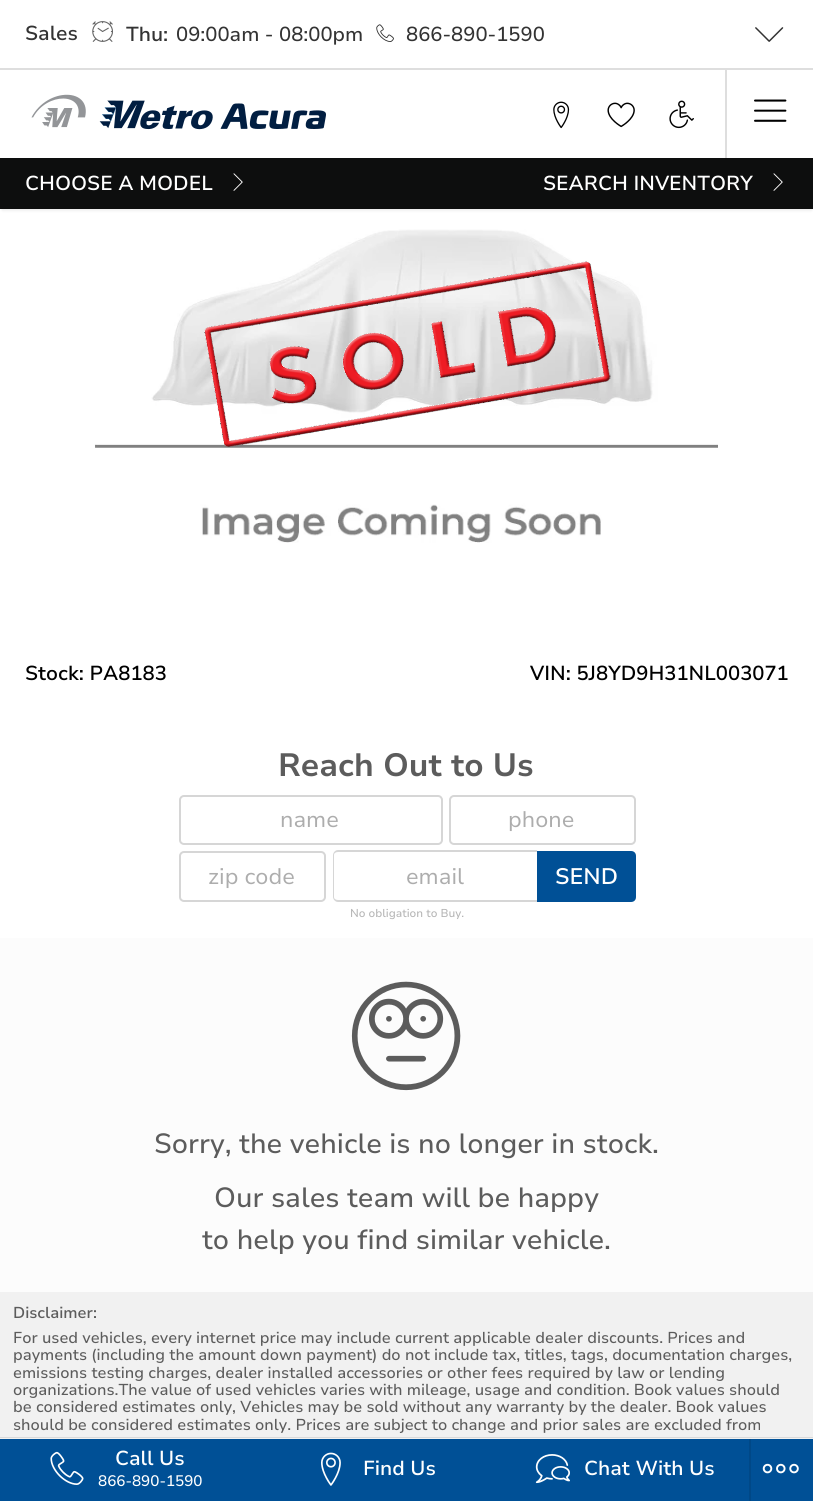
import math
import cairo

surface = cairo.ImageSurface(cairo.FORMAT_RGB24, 813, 1501)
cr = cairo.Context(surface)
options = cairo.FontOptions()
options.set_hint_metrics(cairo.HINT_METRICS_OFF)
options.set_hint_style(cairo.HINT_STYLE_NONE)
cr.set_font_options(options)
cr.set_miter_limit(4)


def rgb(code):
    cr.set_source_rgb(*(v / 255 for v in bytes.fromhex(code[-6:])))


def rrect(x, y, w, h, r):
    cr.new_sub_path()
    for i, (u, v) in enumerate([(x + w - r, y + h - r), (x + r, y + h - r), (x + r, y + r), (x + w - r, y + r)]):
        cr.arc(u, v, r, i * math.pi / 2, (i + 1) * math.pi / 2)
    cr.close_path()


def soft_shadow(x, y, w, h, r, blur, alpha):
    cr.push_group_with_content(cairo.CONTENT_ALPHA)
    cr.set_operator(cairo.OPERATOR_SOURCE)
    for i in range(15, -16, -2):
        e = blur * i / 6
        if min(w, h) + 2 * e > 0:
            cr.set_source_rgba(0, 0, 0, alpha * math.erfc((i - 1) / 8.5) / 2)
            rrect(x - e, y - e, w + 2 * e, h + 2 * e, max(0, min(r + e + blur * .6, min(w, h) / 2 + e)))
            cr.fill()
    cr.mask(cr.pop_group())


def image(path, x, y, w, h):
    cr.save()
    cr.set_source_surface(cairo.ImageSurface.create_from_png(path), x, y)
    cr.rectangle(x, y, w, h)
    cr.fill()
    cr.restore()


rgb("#fcfcfc")
cr.paint()
rgb("#ffffff")
cr.rectangle(0, 0, 813, 158)
cr.fill()
rgb("#dedede")
cr.rectangle(0, 68, 813, 2)
cr.fill()
image("img/1.png", 92, 21, 21, 21)
image("img/2.png", 376, 24, 18, 18)
image("img/3.png", 755, 27, 29, 15)
image("img/4.png", 31, 94, 295, 36)
image("img/5.png", 553, 101, 17, 28)
image("img/6.png", 607, 102, 28, 26)
image("img/7.png", 669, 100, 25, 29)
rgb("#ffffff")
cr.rectangle(0, 209, 813, 729)
cr.fill()
rgb("#000000")
soft_shadow(2, 162, 810, 48, 0, 1.5, 0.1)
rgb("#dedede")
cr.rectangle(725, 69, 2, 89)
cr.fill()
image("img/8.png", 754, 99, 33, 23)
rgb("#0d0e0e")
cr.rectangle(0, 158, 813, 51)
cr.fill()
image("img/9.png", 233, 173, 10, 18)
image("img/9.png", 773, 173, 10, 18)
image("img/10.png", 94, 229, 624, 314)
image("img/11.png", 204, 261, 407, 186)
rrect(180, 796, 262, 48, 4)
rgb("#d6d6d6")
cr.stroke()
rrect(450, 796, 185, 48, 4)
cr.stroke()
rrect(180, 852, 145, 49, 4)
cr.stroke()
cr.set_fill_rule(cairo.FILL_RULE_EVEN_ODD)
cr.new_path()
cr.move_to(338, 850)
cr.line_to(537, 850)
cr.line_to(537, 902)
cr.line_to(338, 902)
cr.curve_to(335, 902, 333, 899, 333, 897)
cr.line_to(333, 855)
cr.curve_to(333, 853, 335, 850, 338, 850)
cr.close_path()
cr.move_to(338, 852)
cr.line_to(537, 852)
cr.line_to(537, 900)
cr.line_to(338, 900)
cr.curve_to(336, 900, 334, 899, 334, 897)
cr.line_to(334, 855)
cr.curve_to(334, 853, 336, 852, 338, 852)
cr.close_path()
cr.fill()
rgb("#005096")
cr.new_path()
cr.move_to(537, 851)
cr.line_to(631, 851)
cr.curve_to(634, 851, 636, 853, 636, 856)
cr.line_to(636, 897)
cr.curve_to(636, 900, 634, 902, 631, 902)
cr.line_to(537, 902)
cr.close_path()
cr.fill()
image("img/12.png", 351, 981, 110, 110)
rgb("#f1f1f1")
cr.rectangle(0, 1292, 813, 147)
cr.fill()
cr.set_source_rgba(0, 0, 0, 0.1)
cr.rectangle(0, 1437, 813, 1)
cr.fill()
rgb("#005096")
cr.rectangle(0, 1439, 749, 62)
cr.fill()
image("img/13.png", 50, 1451, 34, 34)
image("img/14.png", 321, 1452, 20, 34)
image("img/15.png", 535, 1454, 35, 30)
cr.rectangle(751, 1439, 62, 62)
cr.fill()
rgb("#004887")
cr.rectangle(749, 1439, 2, 62)
cr.fill()
image("img/16.png", 762, 1463, 37, 11)
cr.select_font_face("Nunito Sans SemiBold")
cr.set_font_size(20.25)
rgb("#333333")
cr.move_to(25, 40)
cr.show_text("Sales")
cr.move_to(126, 41)
cr.show_text("Thu:")
cr.select_font_face("Nunito Sans Medium")
cr.move_to(176, 41)
cr.show_text("09:00am - 08:00pm")
cr.move_to(406, 41)
cr.show_text("866-890-1590")
cr.select_font_face("Nunito Sans SemiBold")
rgb("#ffffff")
cr.move_to(25, 190)
cr.show_text("CHOOSE A MODEL")
cr.move_to(543, 190)
cr.show_text("SEARCH INVENTORY")
rgb("#000000")
cr.move_to(25, 680)
cr.show_text("Stock: PA8183")
cr.move_to(530, 680)
cr.show_text("VIN: 5J8YD9H31NL003071")
cr.select_font_face("Nunito Sans", cairo.FONT_SLANT_NORMAL, cairo.FONT_WEIGHT_BOLD)
cr.set_font_size(32.25)
rgb("#5c5c5c")
cr.move_to(278, 776)
cr.show_text("Reach Out to Us")
cr.select_font_face("Nunito Sans")
cr.set_font_size(22.5)
rgb("#adadad")
for x, y, s in [
    (280, 827, "name"),
    (508, 827, "phone"),
    (208, 884, "zip code"),
    (406, 884, "email"),
]:
    cr.move_to(x, y)
    cr.show_text(s)
cr.select_font_face("Nunito Sans SemiBold")
rgb("#ffffff")
cr.move_to(555, 884)
cr.show_text("SEND")
cr.select_font_face("Nunito Sans Medium")
cr.set_font_size(11.4)
rgb("#b5b5b5")
cr.move_to(350, 917)
cr.show_text("No obligation to Buy.")
cr.set_font_size(27.75)
rgb("#5c5c5c")
for x, y, s in [
    (154, 1153, "Sorry, the vehicle is no longer in stock."),
    (214, 1207, "Our sales team will be happy"),
    (202, 1249, "to help you find similar vehicle."),
]:
    cr.move_to(x, y)
    cr.show_text(s)
cr.select_font_face("Nunito Sans SemiBold")
cr.set_font_size(15.8)
cr.move_to(13, 1318)
cr.show_text("Disclaimer:")
cr.select_font_face("Nunito Sans Medium")
for x, y, s in [
    (13, 1343, "For used vehicles, every internet price may include current applicable dealer discounts. Prices and"),
    (13, 1360, "payments (including the amount down payment) do not include tax, titles, tags, documentation charges,"),
    (13, 1378, "emissions testing charges, dealer installed accessories or other fees required by law or lending"),
    (13, 1395, "organizations.The value of used vehicles varies with mileage, usage and condition. Book values should"),
    (13, 1412, "be considered estimates only, Vehicles may be sold without any warranty by the dealer. Book values"),
    (13, 1430, "should be considered estimates only. Prices are subject to change and prior sales are excluded from"),
]:
    cr.move_to(x, y)
    cr.show_text(s)
cr.select_font_face("Nunito Sans SemiBold")
cr.set_font_size(20.25)
rgb("#ffffff")
cr.move_to(115, 1465)
cr.show_text("Call Us")
cr.select_font_face("Nunito Sans Medium")
cr.set_font_size(15.25)
cr.move_to(98, 1486)
cr.show_text("866-890-1590")
cr.select_font_face("Nunito Sans SemiBold")
cr.set_font_size(20.25)
cr.move_to(363, 1475)
cr.show_text("Find Us")
cr.move_to(584, 1475)
cr.show_text("Chat With Us")
surface.write_to_png("page.png")
